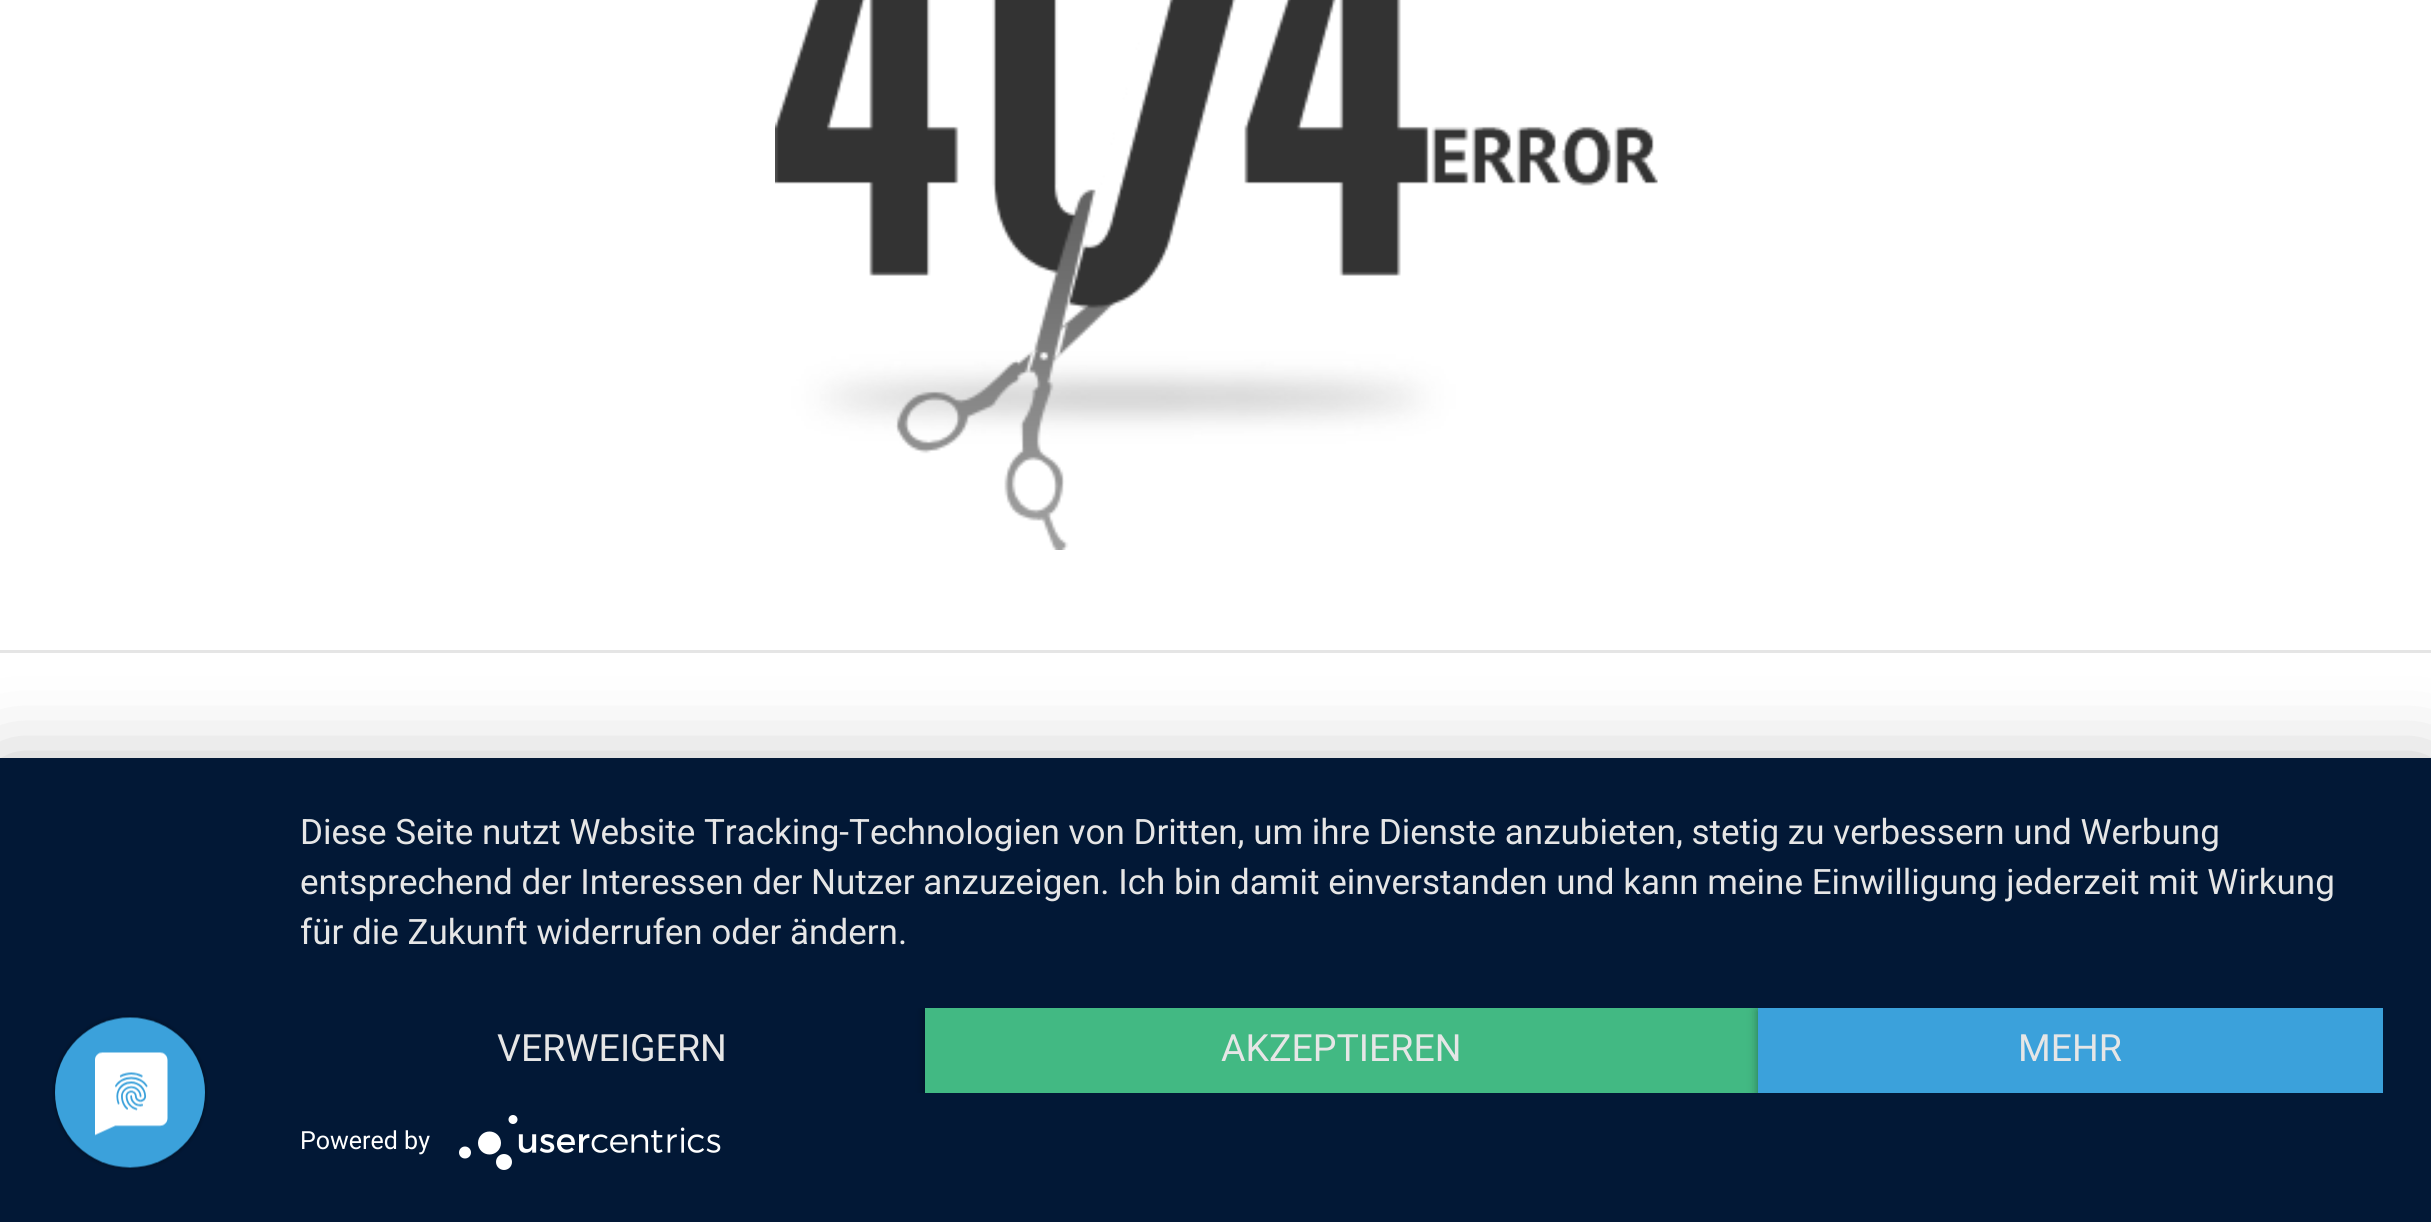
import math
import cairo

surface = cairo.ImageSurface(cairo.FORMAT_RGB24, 2431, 1222)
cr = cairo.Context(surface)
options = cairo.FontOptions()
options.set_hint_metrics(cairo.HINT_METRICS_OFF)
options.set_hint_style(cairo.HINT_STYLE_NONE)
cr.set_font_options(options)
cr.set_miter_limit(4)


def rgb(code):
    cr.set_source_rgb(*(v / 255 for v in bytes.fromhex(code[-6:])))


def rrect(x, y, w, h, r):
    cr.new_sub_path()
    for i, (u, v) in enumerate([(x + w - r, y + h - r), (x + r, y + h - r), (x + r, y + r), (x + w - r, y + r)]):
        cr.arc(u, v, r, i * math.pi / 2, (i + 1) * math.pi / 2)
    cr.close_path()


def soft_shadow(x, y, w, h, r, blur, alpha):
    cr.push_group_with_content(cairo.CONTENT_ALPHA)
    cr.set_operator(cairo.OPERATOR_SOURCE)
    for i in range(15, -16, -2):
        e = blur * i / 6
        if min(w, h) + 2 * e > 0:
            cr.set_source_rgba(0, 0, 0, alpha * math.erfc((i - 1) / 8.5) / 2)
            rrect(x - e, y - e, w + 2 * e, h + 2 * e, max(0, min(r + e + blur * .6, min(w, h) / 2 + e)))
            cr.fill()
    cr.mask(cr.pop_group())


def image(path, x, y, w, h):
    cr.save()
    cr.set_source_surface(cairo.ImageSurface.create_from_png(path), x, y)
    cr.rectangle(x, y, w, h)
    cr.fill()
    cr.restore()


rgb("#ffffff")
cr.paint()
rgb("#e5e5e5")
cr.rectangle(0, 650, 2431, 3)
cr.fill()
image("img/1.png", 775, 0, 883, 550)
rgb("#000000")
soft_shadow(0, 773, 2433, 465, 0, 45, 0.3)
rgb("#021836")
cr.rectangle(0, 758, 2431, 464)
cr.fill()
image("img/2.png", 52, 1015, 156, 155)
cr.save()
cr.rectangle(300, 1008, 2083, 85)
cr.clip()
rgb("#000000")
soft_shadow(925, 1010, 833, 85, 0, 5, 0.4)
cr.restore()
rgb("#42b983")
cr.rectangle(925, 1008, 833, 85)
cr.fill()
cr.save()
cr.rectangle(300, 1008, 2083, 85)
cr.clip()
rgb("#000000")
soft_shadow(1758, 1010, 625, 85, 0, 5, 0.4)
cr.restore()
rgb("#3ba1db")
cr.rectangle(1758, 1008, 625, 85)
cr.fill()
image("img/3.png", 459, 1115, 262, 55)
cr.select_font_face("Roboto")
cr.set_font_size(35)
rgb("#e6e6e6")
for x, y, s in [
    (300, 844, "Diese Seite nutzt Website Tracking-Technologien von Dritten, um ihre Dienste anzubieten, stetig zu verbessern und Werbung"),
    (300, 894, "entsprechend der Interessen der Nutzer anzuzeigen. Ich bin damit einverstanden und kann meine Einwilligung jederzeit mit Wirkung"),
    (300, 944, "für die Zukunft widerrufen oder ändern."),
]:
    cr.move_to(x, y)
    cr.show_text(s)
cr.set_font_size(37.5)
for x, y, s in [
    (497, 1061, "VERWEIGERN"),
    (1221, 1061, "AKZEPTIEREN"),
    (2018, 1061, "MEHR"),
]:
    cr.move_to(x, y)
    cr.show_text(s)
cr.set_font_size(25)
rgb("#ffffff")
cr.move_to(300, 1149)
cr.show_text("Powered by")
surface.write_to_png("page.png")
